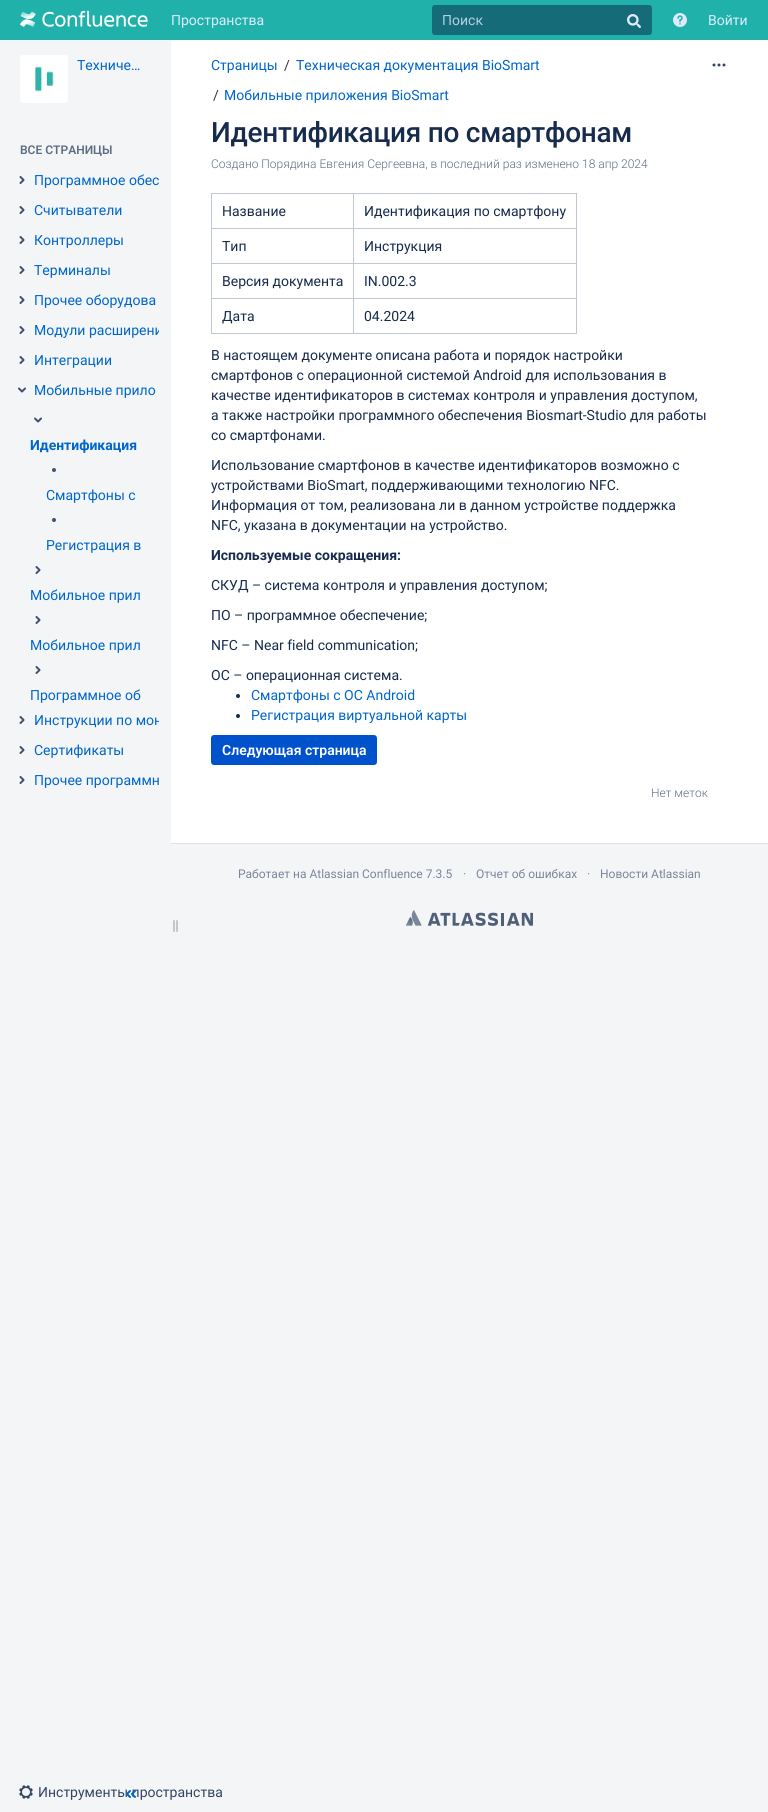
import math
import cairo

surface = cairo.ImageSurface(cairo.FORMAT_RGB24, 768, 1812)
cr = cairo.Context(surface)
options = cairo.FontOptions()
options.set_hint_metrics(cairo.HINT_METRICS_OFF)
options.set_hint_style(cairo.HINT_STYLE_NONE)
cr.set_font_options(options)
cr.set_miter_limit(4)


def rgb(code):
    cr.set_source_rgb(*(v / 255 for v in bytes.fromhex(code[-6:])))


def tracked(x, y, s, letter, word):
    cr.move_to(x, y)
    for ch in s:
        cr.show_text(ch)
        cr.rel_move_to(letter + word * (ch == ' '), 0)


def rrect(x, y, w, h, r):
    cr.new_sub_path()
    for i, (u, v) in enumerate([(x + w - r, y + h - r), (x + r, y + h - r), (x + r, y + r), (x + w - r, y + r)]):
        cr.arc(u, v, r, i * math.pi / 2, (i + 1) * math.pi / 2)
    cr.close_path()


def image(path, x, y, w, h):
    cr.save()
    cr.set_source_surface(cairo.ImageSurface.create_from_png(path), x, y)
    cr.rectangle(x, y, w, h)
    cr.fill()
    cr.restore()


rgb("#f4f5f7")
cr.paint()
rgb("#20b2aa")
cr.rectangle(0, 0, 768, 40)
cr.fill()
image("img/1.png", 20, 10, 128, 17)
rgb("#156b78")
rrect(432, 5, 220, 30, 3)
cr.fill()
image("img/2.png", 627, 14, 14, 14)
image("img/3.png", 673, 13, 14, 14)
rgb("#ffffff")
rrect(20, 55, 48, 48, 3)
cr.fill()
image("img/4.png", 35, 66, 19, 26)
image("img/5.png", 19, 176, 6, 8)
image("img/5.png", 19, 206, 6, 8)
image("img/5.png", 19, 236, 6, 8)
image("img/5.png", 19, 266, 6, 8)
image("img/5.png", 19, 296, 6, 8)
image("img/5.png", 19, 326, 6, 8)
image("img/5.png", 19, 356, 6, 8)
image("img/6.png", 18, 387, 8, 6)
image("img/6.png", 34, 417, 8, 6)
rgb("#42526e")
cr.arc(54, 470, 2, 0, 2 * math.pi)
cr.fill()
cr.arc(54, 520, 2, 0, 2 * math.pi)
cr.fill()
image("img/5.png", 35, 566, 6, 8)
image("img/5.png", 35, 616, 6, 8)
image("img/5.png", 35, 666, 6, 8)
image("img/5.png", 19, 716, 6, 8)
image("img/5.png", 19, 746, 6, 8)
image("img/5.png", 19, 776, 6, 8)
image("img/7.png", 173, 920, 5, 12)
image("img/8.png", 19, 1785, 14, 14)
rgb("#ffffff")
cr.rectangle(171, 40, 597, 803)
cr.fill()
rgb("#dfe1e6")
cr.rectangle(171, 843, 597, 1)
cr.fill()
image("img/10.png", 712, 63, 14, 4)
for x, y, w, h, color in [
    (353, 193, 224, 1, "#c1c7d0"),
    (353, 228, 224, 1, "#c1c7d0"),
    (353, 263, 224, 1, "#c1c7d0"),
    (353, 298, 224, 1, "#c1c7d0"),
    (576, 298, 1, 36, "#c1c7d0"),
    (353, 333, 224, 1, "#c1c7d0"),
    (353, 298, 1, 36, "#c1c7d0"),
    (211, 298, 143, 1, "#c1c7d0"),
    (353, 263, 1, 36, "#c1c7d0"),
    (211, 263, 143, 1, "#c1c7d0"),
    (353, 228, 1, 36, "#c1c7d0"),
    (211, 228, 143, 1, "#c1c7d0"),
    (353, 193, 1, 36, "#c1c7d0"),
    (211, 193, 143, 1, "#c1c7d0"),
    (211, 333, 143, 1, "#c1c7d0"),
    (211, 298, 1, 36, "#c1c7d0"),
    (211, 263, 1, 36, "#c1c7d0"),
    (211, 228, 1, 36, "#c1c7d0"),
    (211, 193, 1, 36, "#c1c7d0"),
    (576, 263, 1, 36, "#c1c7d0"),
    (576, 228, 1, 36, "#c1c7d0"),
    (576, 193, 1, 36, "#c1c7d0"),
]:
    rgb(color)
    cr.rectangle(x, y, w, h)
    cr.fill()
rgb("#172b4d")
cr.arc(238, 696, 2, 0, 2 * math.pi)
cr.fill()
cr.arc(238, 716, 2, 0, 2 * math.pi)
cr.fill()
rgb("#0052cc")
rrect(211, 735, 166, 30, 3)
cr.fill()
image("img/11.png", 406, 910, 127, 16)
cr.select_font_face("Roboto")
cr.set_font_size(14)
rgb("#deebff")
cr.move_to(171, 25)
cr.show_text("Пространства")
rgb("#b6d1e4")
cr.move_to(442, 25)
cr.show_text("Поиск")
rgb("#deebff")
cr.move_to(708, 25)
cr.show_text("Войти")
rgb("#0066cc")
cr.move_to(77, 70)
cr.show_text("Техниче…")
cr.select_font_face("Roboto SemiBold")
cr.set_font_size(12)
rgb("#5e6c84")
cr.move_to(20, 154)
cr.show_text("ВСЕ СТРАНИЦЫ")
cr.select_font_face("Roboto")
cr.set_font_size(14)
rgb("#0066cc")
for x, y, s in [
    (34, 185, "Программное обес"),
    (34, 215, "Считыватели"),
    (34, 245, "Контроллеры"),
    (34, 275, "Терминалы"),
    (34, 305, "Прочее оборудова"),
]:
    cr.move_to(x, y)
    cr.show_text(s)
cr.save()
cr.rectangle(34, 320, 125, 20)
cr.clip()
cr.move_to(34, 335)
cr.show_text("Модули расширени")
cr.restore()
cr.move_to(34, 365)
cr.show_text("Интеграции")
cr.move_to(34, 395)
cr.show_text("Мобильные прило")
cr.select_font_face("Roboto", cairo.FONT_SLANT_NORMAL, cairo.FONT_WEIGHT_BOLD)
cr.move_to(30, 450)
cr.show_text("Идентификация")
cr.select_font_face("Roboto")
for x, y, s in [
    (46, 500, "Смартфоны с"),
    (46, 550, "Регистрация в"),
    (30, 600, "Мобильное прил"),
    (30, 650, "Мобильное прил"),
    (30, 700, "Программное об"),
]:
    cr.move_to(x, y)
    cr.show_text(s)
cr.save()
cr.rectangle(34, 710, 125, 20)
cr.clip()
cr.move_to(34, 725)
cr.show_text("Инструкции по мон")
cr.restore()
cr.move_to(34, 755)
cr.show_text("Сертификаты")
cr.move_to(34, 785)
cr.show_text("Прочее программн")
rgb("#344563")
cr.move_to(38, 1797)
cr.show_text("Инструменты пространства")
image("img/9.png", 126, 1790, 10, 8)
rgb("#0066cc")
cr.move_to(211, 70)
cr.show_text("Страницы")
rgb("#333333")
cr.move_to(284, 70)
cr.show_text("/")
rgb("#0066cc")
cr.move_to(296, 70)
cr.show_text("Техническая документация BioSmart")
rgb("#333333")
cr.move_to(213, 100)
cr.show_text("/")
rgb("#0066cc")
cr.move_to(224, 100)
cr.show_text("Мобильные приложения BioSmart")
cr.select_font_face("Roboto Medium")
cr.set_font_size(28)
rgb("#172b4d")
tracked(211, 142, "Идентификация по смартфонам", -0.25, 0)
cr.select_font_face("Roboto Light")
cr.set_font_size(12)
rgb("#5e6c84")
cr.move_to(211, 168)
cr.show_text("Создано Порядина Евгения Сергеевна, в последний раз изменено 18 апр 2024")
cr.select_font_face("Roboto")
cr.set_font_size(14)
rgb("#172b4d")
for x, y, s in [
    (222, 216, "Название"),
    (364, 216, "Идентификация по смартфону"),
    (222, 251, "Тип"),
    (364, 251, "Инструкция"),
    (222, 286, "Версия документа"),
    (364, 286, "IN.002.3"),
    (222, 321, "Дата"),
    (364, 321, "04.2024"),
    (211, 360, "В настоящем документе описана работа и порядок настройки"),
    (211, 380, "смартфонов с операционной системой Android для использования в"),
    (211, 400, "качестве идентификаторов в системах контроля и управления доступом,"),
    (211, 420, "а также настройки программного обеспечения Biosmart-Studio для работы"),
    (211, 440, "со смартфонами."),
    (211, 470, "Использование смартфонов в качестве идентификаторов возможно с"),
    (211, 490, "устройствами BioSmart, поддерживающими технологию NFC."),
    (211, 510, "Информация от том, реализована ли в данном устройстве поддержка"),
    (211, 530, "NFC, указана в документации на устройство."),
]:
    cr.move_to(x, y)
    cr.show_text(s)
cr.select_font_face("Roboto", cairo.FONT_SLANT_NORMAL, cairo.FONT_WEIGHT_BOLD)
cr.move_to(211, 560)
cr.show_text("Используемые сокращения:")
cr.select_font_face("Roboto")
for x, y, s in [
    (211, 590, "СКУД – система контроля и управления доступом;"),
    (211, 620, "ПО – программное обеспечение;"),
    (211, 650, "NFC – Near field communication;"),
    (211, 680, "ОС – операционная система."),
]:
    cr.move_to(x, y)
    cr.show_text(s)
rgb("#0066cc")
cr.move_to(251, 700)
cr.show_text("Смартфоны с ОС Android")
cr.move_to(251, 720)
cr.show_text("Регистрация виртуальной карты")
cr.select_font_face("Roboto SemiBold")
rgb("#ffffff")
cr.move_to(222, 755)
cr.show_text("Следующая страница")
cr.select_font_face("Roboto Light")
cr.set_font_size(12)
rgb("#5e6c84")
cr.move_to(651, 797)
cr.show_text("Нет меток")
cr.select_font_face("Roboto")
rgb("#7a869a")
for x, y, s in [
    (238, 878, "Работает на Atlassian Confluence 7.3.5"),
    (463, 878, "·"),
    (476, 878, "Отчет об ошибках"),
    (587, 878, "·"),
    (600, 878, "Новости Atlassian"),
]:
    cr.move_to(x, y)
    cr.show_text(s)
surface.write_to_png("page.png")
